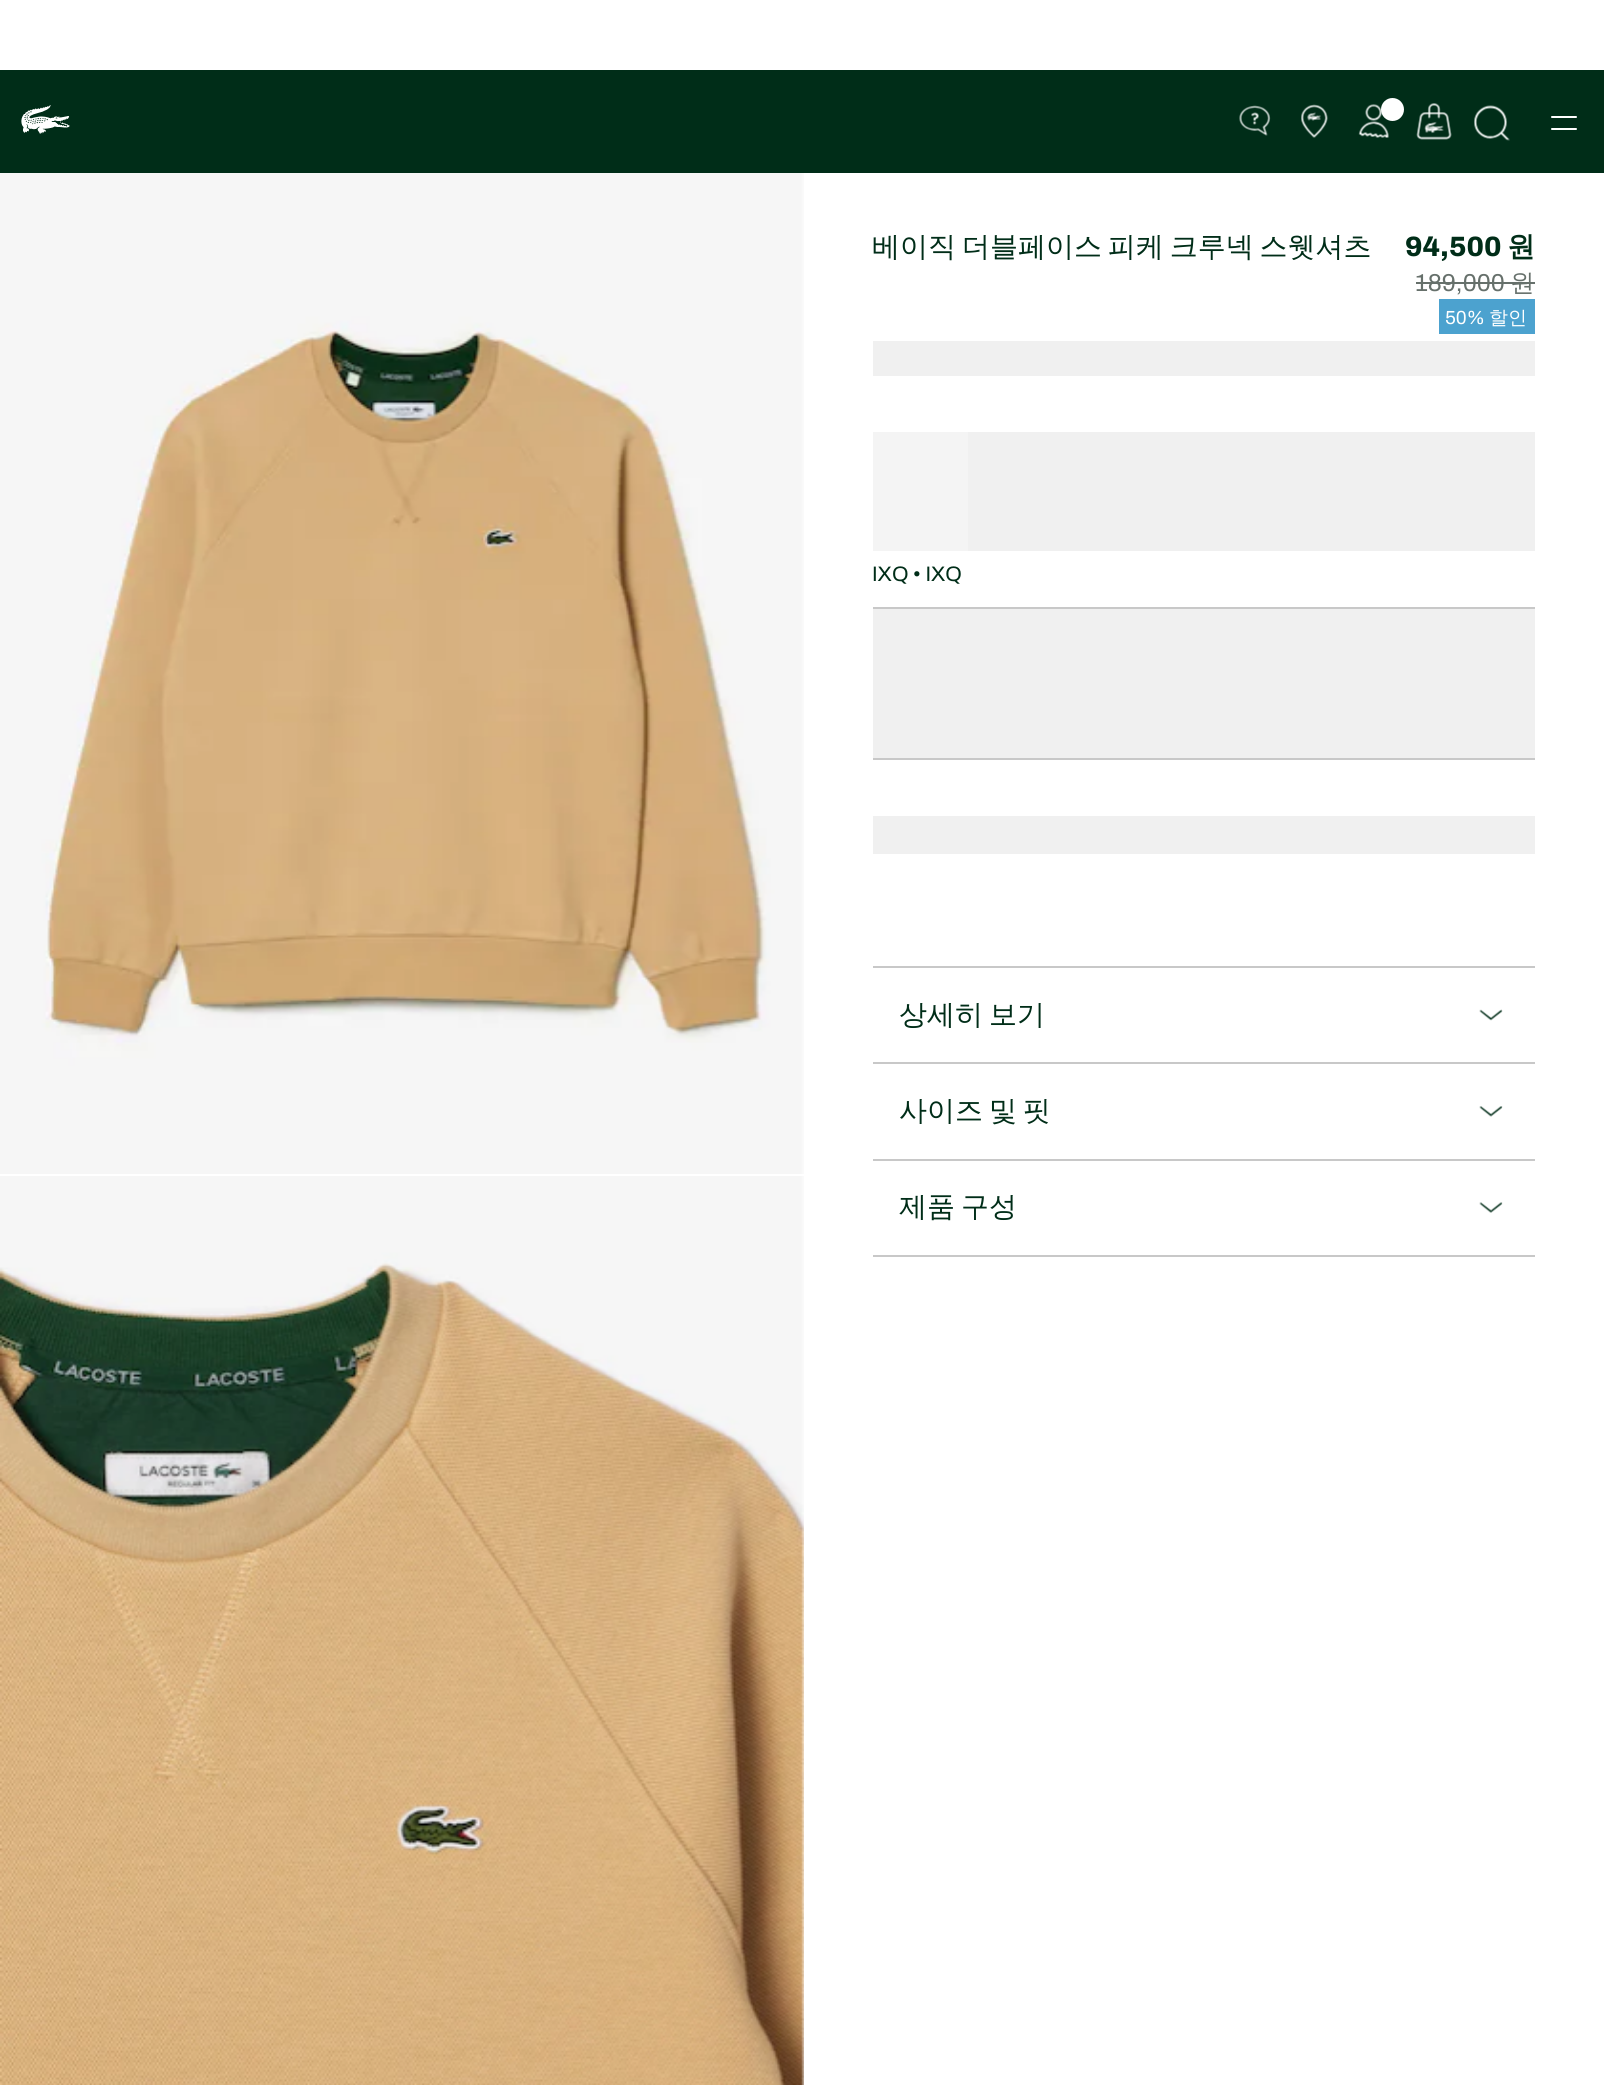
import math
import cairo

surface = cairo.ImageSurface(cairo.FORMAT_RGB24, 1604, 2086)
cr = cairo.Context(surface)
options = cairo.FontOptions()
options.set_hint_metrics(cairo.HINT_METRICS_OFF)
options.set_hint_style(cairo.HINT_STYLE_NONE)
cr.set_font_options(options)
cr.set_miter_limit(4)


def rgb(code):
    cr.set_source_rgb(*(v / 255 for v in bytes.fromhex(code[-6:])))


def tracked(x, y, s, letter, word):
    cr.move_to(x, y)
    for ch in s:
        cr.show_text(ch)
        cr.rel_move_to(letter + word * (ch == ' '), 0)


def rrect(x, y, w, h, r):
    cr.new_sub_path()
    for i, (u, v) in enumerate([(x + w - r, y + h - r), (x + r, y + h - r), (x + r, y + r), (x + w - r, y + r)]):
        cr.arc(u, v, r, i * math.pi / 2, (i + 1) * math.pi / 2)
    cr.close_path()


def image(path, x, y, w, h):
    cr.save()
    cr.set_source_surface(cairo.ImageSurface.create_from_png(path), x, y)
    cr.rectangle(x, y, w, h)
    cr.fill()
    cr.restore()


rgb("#ffffff")
cr.paint()
rgb("#002d18")
cr.rectangle(0, 70, 1604, 103)
cr.fill()
image("img/1.png", 21, 105, 49, 29)
image("img/2.png", 1239, 105, 32, 31)
image("img/3.png", 1301, 104, 27, 34)
image("img/4.png", 1358, 104, 31, 34)
rgb("#ffffff")
cr.arc(1392.5, 109.5, 11.5, 0, 2 * math.pi)
cr.fill()
image("img/5.png", 1416, 103, 36, 37)
image("img/6.png", 1474, 105, 36, 36)
rrect(1551, 116, 26, 2, 1)
cr.fill()
rrect(1551, 128, 26, 2, 1)
cr.fill()
image("img/7.png", 0, 173, 804, 1001)
image("img/8.png", 0, 1176, 804, 909)
for x, y, w, h, color in [
    (1416, 282, 119, 2, "#66706b"),
    (1439, 299, 96, 35, "#4ca2cf"),
    (873, 341, 662, 35, "#f0f0f0"),
    (968, 432, 567, 119, "#f0f0f0"),
    (873, 432, 95, 119, "#f4f4f4"),
    (873, 607, 662, 2, "#c8c8c8"),
    (873, 609, 662, 149, "#f0f0f0"),
    (873, 758, 662, 2, "#c8c8c8"),
    (873, 816, 662, 38, "#f0f0f0"),
    (873, 966, 662, 2, "#c8c8c8"),
]:
    rgb(color)
    cr.rectangle(x, y, w, h)
    cr.fill()
image("img/9.png", 1479, 1009, 24, 12)
cr.rectangle(873, 1062, 662, 2)
cr.fill()
image("img/10.png", 1479, 1106, 24, 11)
cr.rectangle(873, 1159, 662, 2)
cr.fill()
image("img/11.png", 1479, 1202, 24, 11)
cr.rectangle(873, 1255, 662, 2)
cr.fill()
cr.select_font_face("WenQuanYi Zen Hei Medium")
cr.set_font_size(28)
rgb("#002d18")
tracked(872, 256, "베이직 더블페이스 피케 크루넥 스웻셔츠", 0, -2.5)
cr.select_font_face("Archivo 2 SemiBold")
cr.move_to(1405, 256)
cr.show_text("94,500")
cr.select_font_face("WenQuanYi Zen Hei", cairo.FONT_SLANT_NORMAL, cairo.FONT_WEIGHT_BOLD)
cr.move_to(1507, 256)
cr.show_text("원")
cr.select_font_face("Archivo SemiBold")
cr.set_font_size(24.5)
rgb("#66706b")
cr.move_to(1415, 291)
cr.show_text("189,000")
cr.select_font_face("WenQuanYi Zen Hei Medium")
cr.move_to(1510, 291)
cr.show_text("원")
cr.select_font_face("Archivo SemiBold")
cr.set_font_size(19)
rgb("#ffffff")
cr.move_to(1445, 324)
cr.show_text("50%")
cr.select_font_face("WenQuanYi Zen Hei Medium")
cr.move_to(1489, 324)
cr.show_text("할인")
cr.select_font_face("Archivo SemiBold")
cr.set_font_size(21)
rgb("#002d18")
cr.move_to(872, 581)
cr.show_text("IXQ • IXQ")
cr.select_font_face("WenQuanYi Zen Hei Medium")
cr.set_font_size(28)
for x, y, s in [
    (899, 1024, "상세히 보기"),
    (899, 1120, "사이즈 및 핏"),
    (899, 1216, "제품 구성"),
]:
    tracked(x, y, s, 0, -2.5)
surface.write_to_png("page.png")
